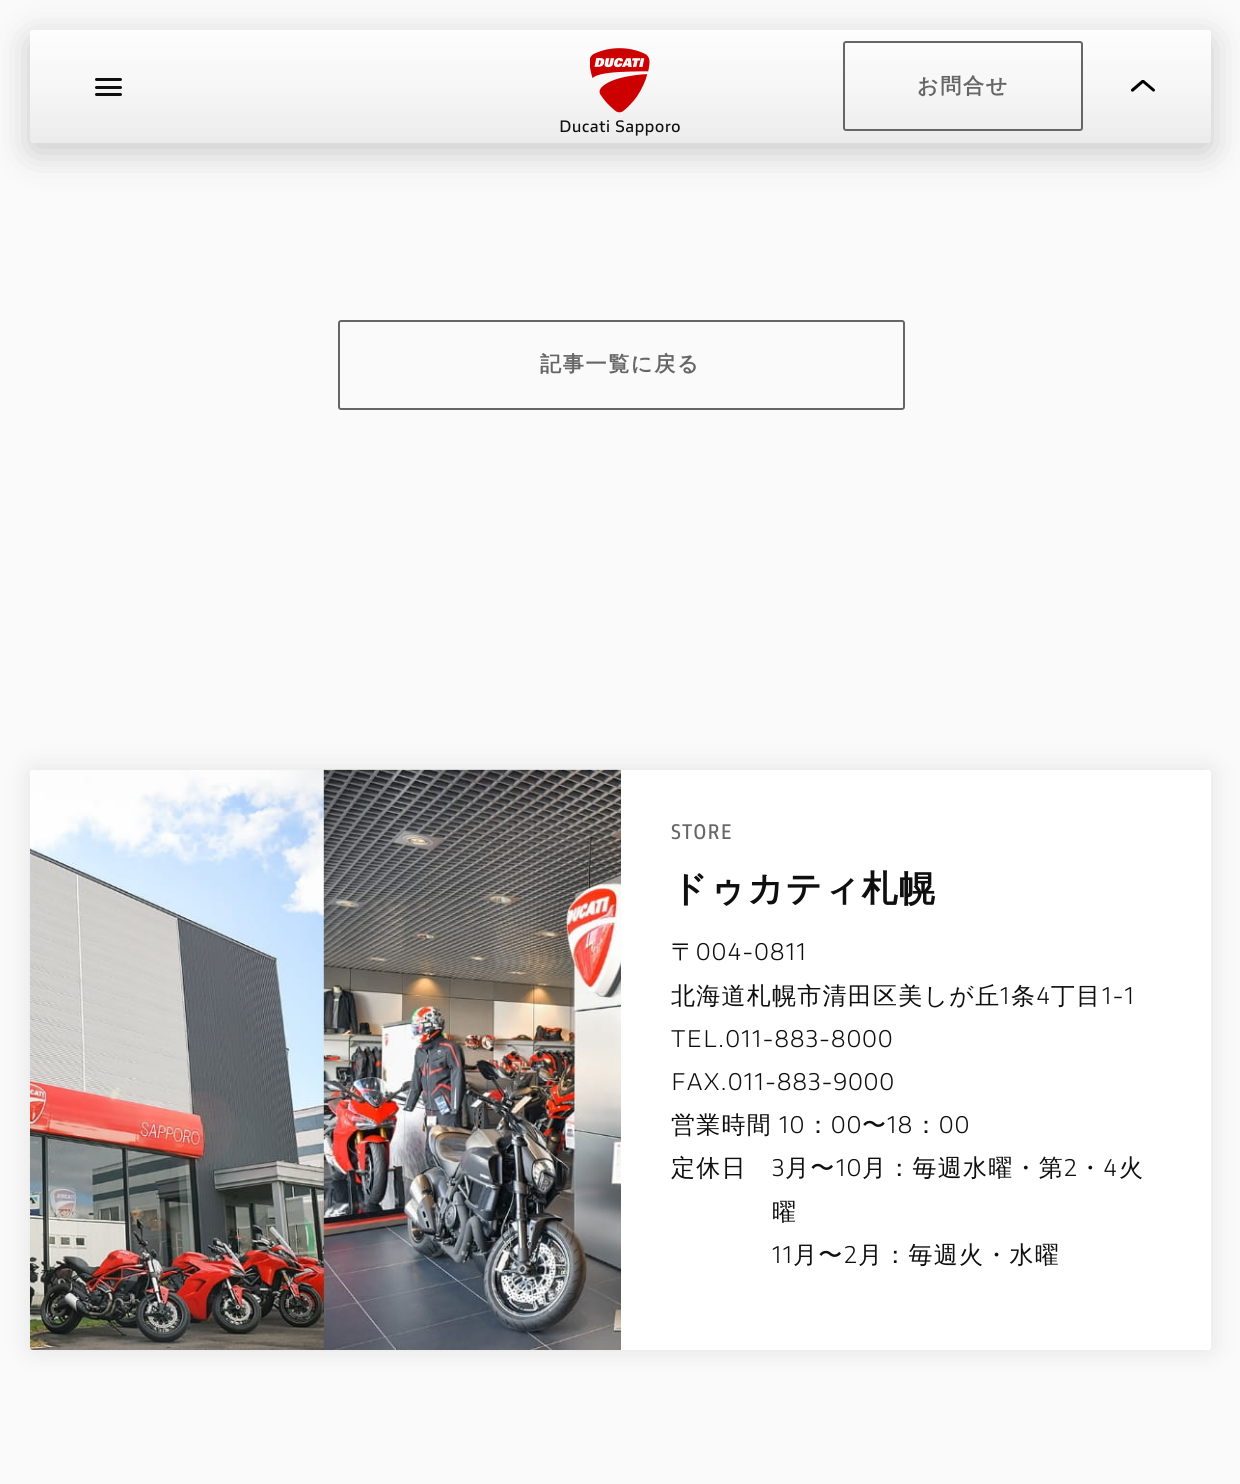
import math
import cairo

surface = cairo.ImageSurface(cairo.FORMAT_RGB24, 1240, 1484)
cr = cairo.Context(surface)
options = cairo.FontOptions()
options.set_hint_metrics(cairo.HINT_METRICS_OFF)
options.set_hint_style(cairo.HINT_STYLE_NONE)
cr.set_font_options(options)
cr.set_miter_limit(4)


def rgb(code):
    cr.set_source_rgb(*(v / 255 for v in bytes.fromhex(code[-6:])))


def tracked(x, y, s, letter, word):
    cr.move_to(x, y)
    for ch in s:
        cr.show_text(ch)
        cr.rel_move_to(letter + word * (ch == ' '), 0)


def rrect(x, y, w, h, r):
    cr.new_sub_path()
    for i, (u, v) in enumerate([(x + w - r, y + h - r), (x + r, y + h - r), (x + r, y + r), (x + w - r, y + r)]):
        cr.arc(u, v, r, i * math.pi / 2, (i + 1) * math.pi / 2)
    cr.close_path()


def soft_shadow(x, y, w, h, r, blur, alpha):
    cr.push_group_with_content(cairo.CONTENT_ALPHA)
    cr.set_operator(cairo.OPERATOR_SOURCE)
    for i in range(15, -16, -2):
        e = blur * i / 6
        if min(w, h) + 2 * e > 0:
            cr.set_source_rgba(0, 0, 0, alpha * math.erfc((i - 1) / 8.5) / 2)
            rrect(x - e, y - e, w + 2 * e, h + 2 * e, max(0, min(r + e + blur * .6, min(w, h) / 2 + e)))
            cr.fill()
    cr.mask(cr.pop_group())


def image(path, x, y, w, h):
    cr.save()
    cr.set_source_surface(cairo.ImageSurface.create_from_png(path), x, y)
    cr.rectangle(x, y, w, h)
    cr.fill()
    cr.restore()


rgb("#fafafa")
cr.paint()
rgb("#000000")
soft_shadow(30, 39, 1181, 113, 3, 18, 0.2)
cr.set_source_rgba(0.733, 0.737, 0.737, 0.5)
cr.rectangle(30, 141, 1181, 2)
cr.fill()
rgb("#fafafa")
rrect(30, 30, 1181, 113, 3)
cr.fill()
gradient = cairo.LinearGradient(620, 30, 620, 143)
gradient.add_color_stop_rgba(0, 1, 1, 1, 0.5)
gradient.add_color_stop_rgba(1, 0.922, 0.922, 0.922, 1)
cr.set_source(gradient)
rrect(30, 30, 1181, 113, 3)
cr.fill()
rgb("#0f0f0f")
rrect(95, 86, 27, 3, 1.5)
cr.fill()
rrect(95, 78, 27, 3, 1.5)
cr.fill()
rrect(95, 93, 27, 3, 1.5)
cr.fill()
rrect(844, 42, 238, 88, 2)
rgb("#666666")
cr.stroke()
image("img/1.png", 1131, 80, 24, 12)
image("img/2.png", 590, 48, 60, 65)
rrect(339, 321, 565, 88, 2)
cr.stroke()
rgb("#000000")
soft_shadow(30, 770, 1181, 580, 3, 13, 0.1)
rgb("#ffffff")
rrect(30, 770, 1181, 580, 3)
cr.fill()
image("img/3.png", 30, 769, 591, 581)
cr.select_font_face("WenQuanYi Zen Hei", cairo.FONT_SLANT_NORMAL, cairo.FONT_WEIGHT_BOLD)
cr.set_font_size(21)
rgb("#666666")
tracked(917, 93, "お問合せ", 1.75, 0)
cr.select_font_face("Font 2", cairo.FONT_SLANT_NORMAL, cairo.FONT_WEIGHT_BOLD)
cr.set_font_size(16.5)
rgb("#0f0f0f")
tracked(559, 132, "Ducati Sapporo", 0.3, 0)
cr.select_font_face("WenQuanYi Zen Hei", cairo.FONT_SLANT_NORMAL, cairo.FONT_WEIGHT_BOLD)
cr.set_font_size(21)
rgb("#666666")
tracked(540, 371, "記事一覧に戻る", 1.75, 0)
cr.select_font_face("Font", cairo.FONT_SLANT_NORMAL, cairo.FONT_WEIGHT_BOLD)
tracked(671, 839, "STORE", 1.5, 0)
cr.select_font_face("WenQuanYi Zen Hei", cairo.FONT_SLANT_NORMAL, cairo.FONT_WEIGHT_BOLD)
cr.set_font_size(36)
rgb("#0f0f0f")
tracked(671, 901, "ドゥカティ札幌", 1.25, 0)
cr.select_font_face("WenQuanYi Zen Hei Medium")
cr.set_font_size(24)
tracked(671, 960, "〒", 1.25, 0)
cr.select_font_face("Font")
tracked(696, 960, "004-0811", 1.25, 0)
cr.select_font_face("WenQuanYi Zen Hei Medium")
tracked(671, 1004, "北海道札幌市清田区美しが丘", 1.25, 0)
cr.select_font_face("Font")
tracked(1000, 1004, "1", 1.25, 0)
cr.select_font_face("WenQuanYi Zen Hei Medium")
tracked(1011, 1004, "条", 1.25, 0)
cr.select_font_face("Font")
tracked(1036, 1004, "4", 1.25, 0)
cr.select_font_face("WenQuanYi Zen Hei Medium")
tracked(1051, 1004, "丁目", 1.25, 0)
cr.select_font_face("Font")
for x, y, s in [
    (1102, 1004, "1-1"),
    (671, 1047, "TEL.011-883-8000"),
    (671, 1090, "FAX.011-883-9000"),
]:
    tracked(x, y, s, 1.25, 0)
cr.select_font_face("WenQuanYi Zen Hei Medium")
tracked(671, 1133, "営業時間", 1.25, 0)
cr.select_font_face("Font")
tracked(779, 1133, "10", 1.25, 0)
cr.select_font_face("WenQuanYi Zen Hei Medium")
tracked(806, 1133, "：", 1.25, 0)
cr.select_font_face("Font")
tracked(831, 1133, "00", 1.25, 0)
cr.select_font_face("WenQuanYi Zen Hei Medium")
tracked(862, 1133, "〜", 1.25, 0)
cr.select_font_face("Font")
tracked(887, 1133, "18", 1.25, 0)
cr.select_font_face("WenQuanYi Zen Hei Medium")
tracked(914, 1133, "：", 1.25, 0)
cr.select_font_face("Font")
tracked(939, 1133, "00", 1.25, 0)
cr.select_font_face("WenQuanYi Zen Hei Medium")
tracked(671, 1176, "定休日", 1.25, 0)
cr.select_font_face("Font")
tracked(772, 1176, "3", 1.25, 0)
cr.select_font_face("WenQuanYi Zen Hei Medium")
tracked(785, 1176, "月〜", 1.25, 0)
cr.select_font_face("Font")
tracked(836, 1176, "10", 1.25, 0)
cr.select_font_face("WenQuanYi Zen Hei Medium")
tracked(862, 1176, "月：毎週水曜・第", 1.25, 0)
cr.select_font_face("Font")
tracked(1064, 1176, "2", 1.25, 0)
cr.select_font_face("WenQuanYi Zen Hei Medium")
tracked(1078, 1176, "・", 1.25, 0)
cr.select_font_face("Font")
tracked(1103, 1176, "4", 1.25, 0)
cr.select_font_face("WenQuanYi Zen Hei Medium")
tracked(1119, 1176, "火", 1.25, 0)
tracked(772, 1220, "曜", 1.25, 0)
cr.select_font_face("Font")
tracked(772, 1263, "11", 1.25, 0)
cr.select_font_face("WenQuanYi Zen Hei Medium")
tracked(793, 1263, "月〜", 1.25, 0)
cr.select_font_face("Font")
tracked(844, 1263, "2", 1.25, 0)
cr.select_font_face("WenQuanYi Zen Hei Medium")
tracked(858, 1263, "月：毎週火・水曜", 1.25, 0)
surface.write_to_png("page.png")
